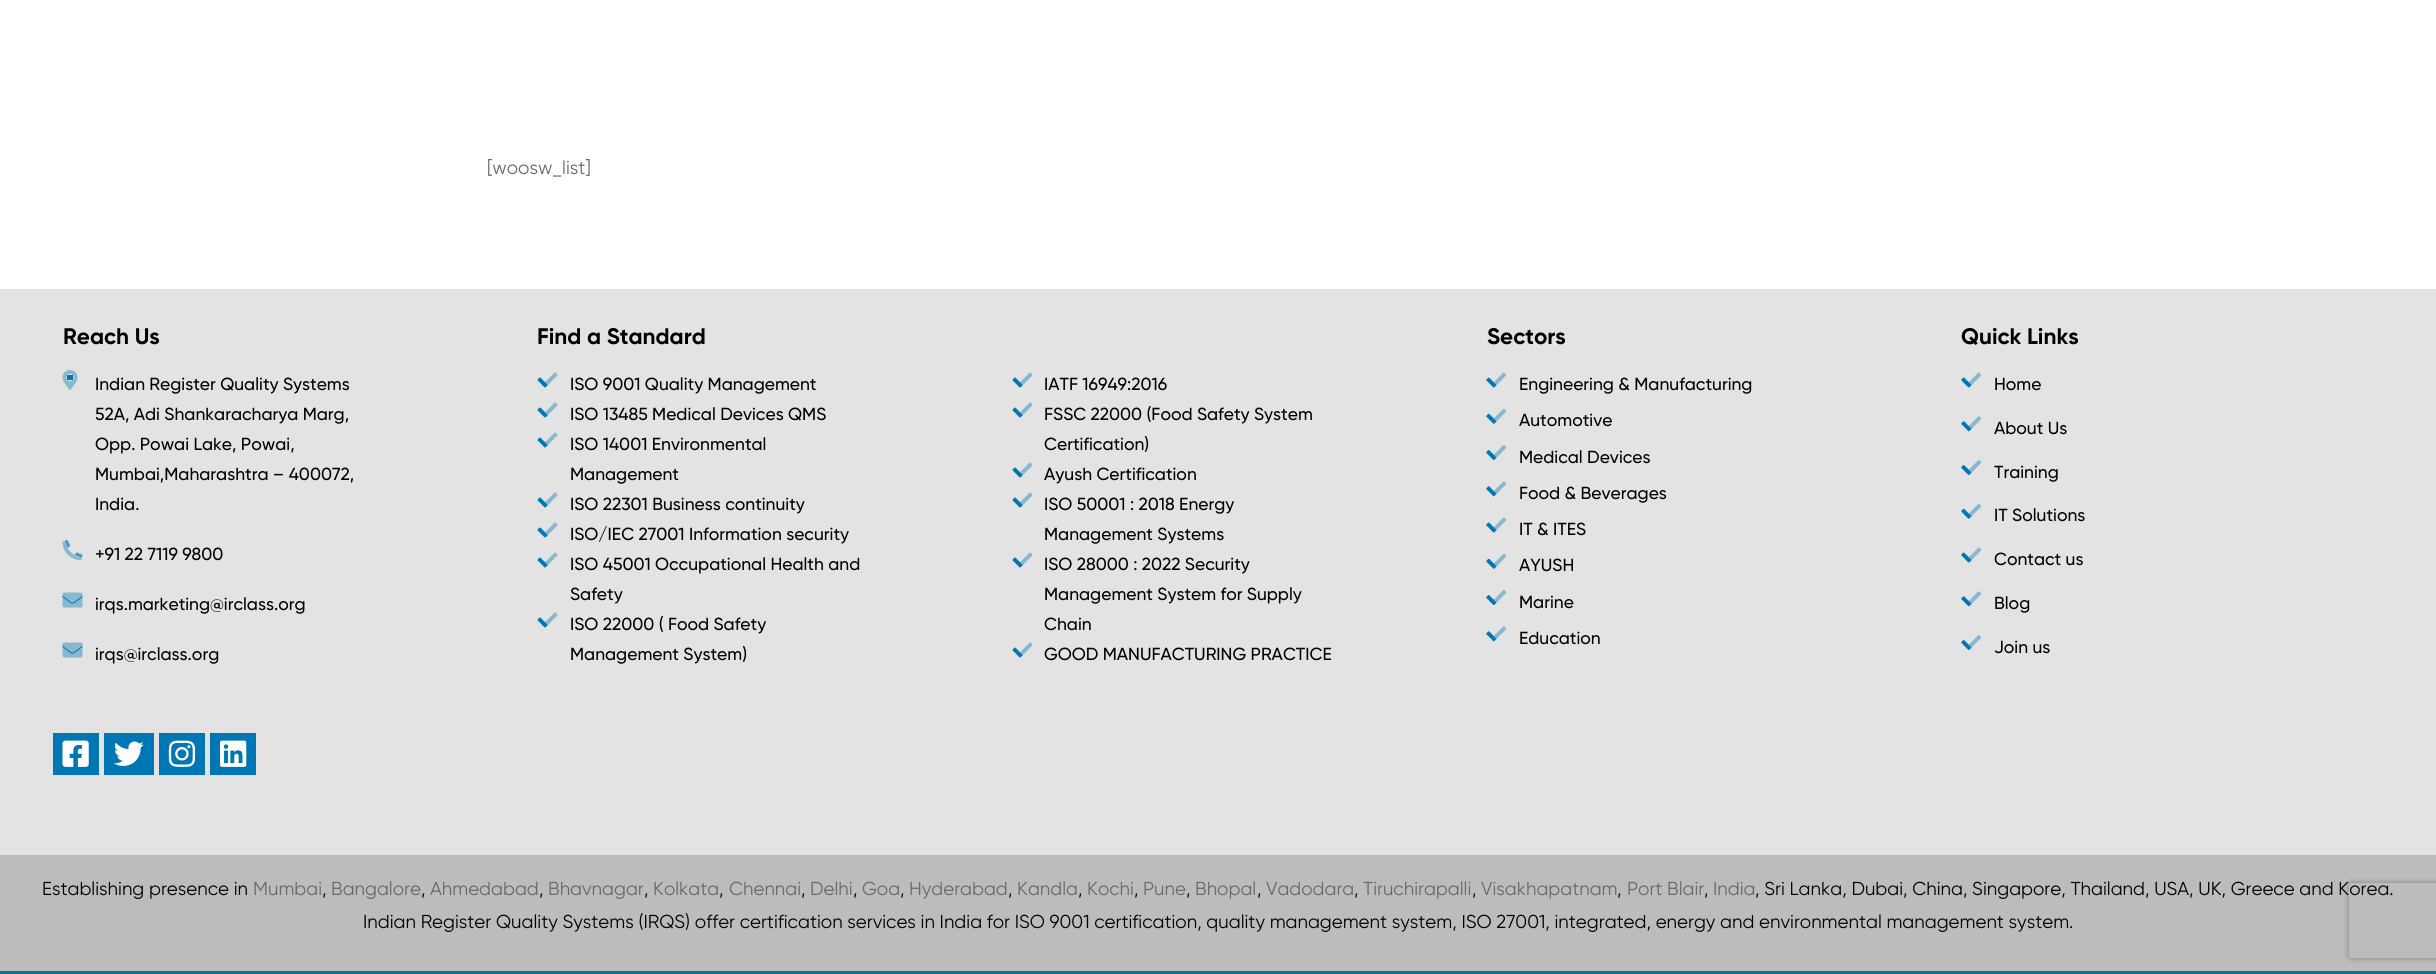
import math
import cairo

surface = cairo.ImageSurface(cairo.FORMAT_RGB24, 2436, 974)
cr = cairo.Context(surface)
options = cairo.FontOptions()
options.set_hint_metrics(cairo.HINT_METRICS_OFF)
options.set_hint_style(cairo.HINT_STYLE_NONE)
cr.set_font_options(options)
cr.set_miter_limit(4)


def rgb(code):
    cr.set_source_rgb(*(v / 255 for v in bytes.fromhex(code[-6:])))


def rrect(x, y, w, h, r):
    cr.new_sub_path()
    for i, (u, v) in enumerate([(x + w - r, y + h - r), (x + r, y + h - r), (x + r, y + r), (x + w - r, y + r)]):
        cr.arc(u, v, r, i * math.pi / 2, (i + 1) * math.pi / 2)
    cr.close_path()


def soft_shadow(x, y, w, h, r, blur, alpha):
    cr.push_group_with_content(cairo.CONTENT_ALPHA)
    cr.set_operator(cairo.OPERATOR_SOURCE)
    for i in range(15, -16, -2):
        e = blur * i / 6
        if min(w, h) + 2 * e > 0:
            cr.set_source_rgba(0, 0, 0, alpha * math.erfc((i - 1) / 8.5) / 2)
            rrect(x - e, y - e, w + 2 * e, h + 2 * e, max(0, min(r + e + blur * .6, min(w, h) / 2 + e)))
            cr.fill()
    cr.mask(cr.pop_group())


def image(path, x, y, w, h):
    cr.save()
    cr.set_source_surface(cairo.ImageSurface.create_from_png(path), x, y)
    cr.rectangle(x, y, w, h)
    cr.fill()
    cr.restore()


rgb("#ffffff")
cr.paint()
rgb("#e3e3e3")
cr.rectangle(0, 289, 2436, 566)
cr.fill()
rgb("#0077b5")
cr.rectangle(67, 375, 6, 5)
cr.fill()
image("img/1.png", 62, 370, 16, 20)
image("img/3.png", 65, 540, 18, 17)
image("img/2.png", 62, 540, 21, 20)
image("img/5.png", 62, 595, 21, 9)
image("img/4.png", 62, 592, 21, 16)
image("img/5.png", 62, 645, 21, 9)
image("img/4.png", 62, 642, 21, 16)
cr.rectangle(53, 733, 46, 42)
cr.fill()
image("img/6.png", 62, 740, 27, 27)
cr.rectangle(104, 733, 50, 42)
cr.fill()
image("img/7.png", 114, 741, 30, 25)
cr.rectangle(159, 733, 46, 42)
cr.fill()
image("img/8.png", 168, 740, 28, 27)
cr.rectangle(210, 733, 46, 42)
cr.fill()
image("img/9.png", 220, 740, 27, 27)
image("img/10.png", 537, 377, 11, 11)
image("img/11.png", 545, 372, 13, 13)
image("img/10.png", 537, 407, 11, 11)
image("img/11.png", 545, 402, 13, 13)
image("img/10.png", 537, 437, 11, 11)
image("img/11.png", 545, 432, 13, 13)
image("img/10.png", 537, 497, 11, 11)
image("img/11.png", 545, 492, 13, 13)
image("img/10.png", 537, 527, 11, 11)
image("img/11.png", 545, 522, 13, 13)
image("img/10.png", 537, 557, 11, 11)
image("img/11.png", 545, 552, 13, 13)
image("img/10.png", 537, 617, 11, 11)
image("img/11.png", 545, 612, 13, 13)
image("img/10.png", 1012, 377, 11, 11)
image("img/11.png", 1020, 372, 13, 13)
image("img/10.png", 1012, 407, 11, 11)
image("img/11.png", 1020, 402, 13, 13)
image("img/10.png", 1012, 467, 11, 11)
image("img/11.png", 1020, 462, 13, 13)
image("img/10.png", 1012, 497, 11, 11)
image("img/11.png", 1020, 492, 13, 13)
image("img/10.png", 1012, 557, 11, 11)
image("img/11.png", 1020, 552, 13, 13)
image("img/10.png", 1012, 647, 11, 11)
image("img/11.png", 1020, 642, 13, 13)
image("img/12.png", 1486, 377, 11, 11)
image("img/13.png", 1494, 372, 13, 13)
image("img/14.png", 1486, 413, 11, 11)
image("img/15.png", 1494, 408, 13, 14)
image("img/16.png", 1486, 450, 11, 10)
image("img/17.png", 1494, 445, 13, 13)
image("img/18.png", 1486, 486, 11, 11)
image("img/19.png", 1494, 481, 13, 13)
image("img/12.png", 1486, 522, 11, 11)
image("img/13.png", 1494, 517, 13, 13)
image("img/14.png", 1486, 558, 11, 11)
image("img/15.png", 1494, 553, 13, 14)
image("img/16.png", 1486, 595, 11, 10)
image("img/17.png", 1494, 590, 13, 13)
image("img/18.png", 1486, 631, 11, 11)
image("img/19.png", 1494, 626, 13, 13)
image("img/12.png", 1961, 377, 11, 11)
image("img/13.png", 1969, 372, 13, 13)
image("img/18.png", 1961, 421, 11, 11)
image("img/19.png", 1969, 416, 13, 13)
image("img/16.png", 1961, 465, 11, 10)
image("img/17.png", 1969, 460, 13, 13)
image("img/14.png", 1961, 508, 11, 11)
image("img/15.png", 1969, 503, 13, 14)
image("img/12.png", 1961, 552, 11, 11)
image("img/13.png", 1969, 547, 13, 13)
image("img/18.png", 1961, 596, 11, 11)
image("img/19.png", 1969, 591, 13, 13)
image("img/16.png", 1961, 640, 11, 10)
image("img/17.png", 1969, 635, 13, 13)
rgb("#bcbcbc")
cr.rectangle(0, 855, 2436, 116)
cr.fill()
rgb("#00789c")
cr.rectangle(0, 971, 2436, 3)
cr.fill()
cr.save()
cr.set_fill_rule(cairo.FILL_RULE_EVEN_ODD)
cr.new_path()
cr.move_to(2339, 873)
cr.line_to(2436, 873)
cr.line_to(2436, 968)
cr.line_to(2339, 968)
cr.close_path()
cr.move_to(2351.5, 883)
cr.line_to(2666.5, 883)
cr.curve_to(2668, 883, 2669, 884, 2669, 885.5)
cr.line_to(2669, 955.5)
cr.curve_to(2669, 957, 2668, 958, 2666.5, 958)
cr.line_to(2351.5, 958)
cr.curve_to(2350, 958, 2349, 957, 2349, 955.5)
cr.line_to(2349, 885.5)
cr.curve_to(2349, 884, 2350, 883, 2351.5, 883)
cr.close_path()
cr.clip()
rgb("#808080")
soft_shadow(2349, 883, 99, 75, 2.5, 3, 1)
cr.restore()
cr.select_font_face("Gilroy")
cr.set_font_size(18.75)
rgb("#696969")
cr.move_to(487, 174)
cr.show_text("[woosw_list]")
cr.select_font_face("Gilroy", cairo.FONT_SLANT_NORMAL, cairo.FONT_WEIGHT_BOLD)
cr.set_font_size(22.5)
rgb("#000000")
cr.move_to(63, 344)
cr.show_text("Reach Us")
cr.select_font_face("Gilroy Medium")
cr.set_font_size(17.5)
for x, y, s in [
    (95, 390, "Indian Register Quality Systems"),
    (95, 420, "52A, Adi Shankaracharya Marg,"),
    (95, 450, "Opp. Powai Lake, Powai,"),
    (95, 480, "Mumbai,Maharashtra – 400072,"),
    (95, 510, "India."),
    (95, 560, "+91 22 7119 9800"),
    (95, 610, "irqs.marketing@irclass.org"),
    (95, 660, "irqs@irclass.org"),
]:
    cr.move_to(x, y)
    cr.show_text(s)
cr.select_font_face("Gilroy", cairo.FONT_SLANT_NORMAL, cairo.FONT_WEIGHT_BOLD)
cr.set_font_size(22.5)
cr.move_to(537, 344)
cr.show_text("Find a Standard")
cr.select_font_face("Gilroy Medium")
cr.set_font_size(17.5)
for x, y, s in [
    (570, 390, "ISO 9001 Quality Management"),
    (570, 420, "ISO 13485 Medical Devices QMS"),
    (570, 450, "ISO 14001 Environmental"),
    (570, 480, "Management"),
    (570, 510, "ISO 22301 Business continuity"),
    (570, 540, "ISO/IEC 27001 Information security"),
    (570, 570, "ISO 45001 Occupational Health and"),
    (570, 600, "Safety"),
    (570, 630, "ISO 22000 ( Food Safety"),
    (570, 660, "Management System)"),
    (1044, 390, "IATF 16949:2016"),
    (1044, 420, "FSSC 22000 (Food Safety System"),
    (1044, 450, "Certification)"),
    (1044, 480, "Ayush Certification"),
    (1044, 510, "ISO 50001 : 2018 Energy"),
    (1044, 540, "Management Systems"),
    (1044, 570, "ISO 28000 : 2022 Security"),
    (1044, 600, "Management System for Supply"),
    (1044, 630, "Chain"),
    (1044, 660, "GOOD MANUFACTURING PRACTICE"),
]:
    cr.move_to(x, y)
    cr.show_text(s)
cr.select_font_face("Gilroy", cairo.FONT_SLANT_NORMAL, cairo.FONT_WEIGHT_BOLD)
cr.set_font_size(22.5)
cr.move_to(1487, 344)
cr.show_text("Sectors")
cr.select_font_face("Gilroy Medium")
cr.set_font_size(17.5)
for x, y, s in [
    (1519, 390, "Engineering & Manufacturing"),
    (1519, 426, "Automotive"),
    (1519, 463, "Medical Devices"),
    (1519, 499, "Food & Beverages"),
    (1519, 535, "IT & ITES"),
    (1519, 571, "AYUSH"),
    (1519, 608, "Marine"),
    (1519, 644, "Education"),
]:
    cr.move_to(x, y)
    cr.show_text(s)
cr.select_font_face("Gilroy", cairo.FONT_SLANT_NORMAL, cairo.FONT_WEIGHT_BOLD)
cr.set_font_size(22.5)
cr.move_to(1961, 344)
cr.show_text("Quick Links")
cr.select_font_face("Gilroy Medium")
cr.set_font_size(17.5)
for x, y, s in [
    (1994, 390, "Home"),
    (1994, 434, "About Us"),
    (1994, 478, "Training"),
    (1994, 521, "IT Solutions"),
    (1994, 565, "Contact us"),
    (1994, 609, "Blog"),
    (1994, 653, "Join us"),
]:
    cr.move_to(x, y)
    cr.show_text(s)
cr.select_font_face("Gilroy")
cr.set_font_size(18.75)
cr.move_to(42, 895)
cr.show_text("Establishing presence in")
rgb("#696969")
cr.move_to(253, 895)
cr.show_text("Mumbai")
rgb("#000000")
cr.move_to(322, 895)
cr.show_text(",")
rgb("#696969")
cr.move_to(331, 895)
cr.show_text("Bangalore")
rgb("#000000")
cr.move_to(421, 895)
cr.show_text(",")
rgb("#696969")
cr.move_to(430, 895)
cr.show_text("Ahmedabad")
rgb("#000000")
cr.move_to(539, 895)
cr.show_text(",")
rgb("#696969")
cr.move_to(548, 895)
cr.show_text("Bhavnagar")
rgb("#000000")
cr.move_to(644, 895)
cr.show_text(",")
rgb("#696969")
cr.move_to(653, 895)
cr.show_text("Kolkata")
rgb("#000000")
cr.move_to(719, 895)
cr.show_text(",")
rgb("#696969")
cr.move_to(729, 895)
cr.show_text("Chennai")
rgb("#000000")
cr.move_to(801, 895)
cr.show_text(",")
rgb("#696969")
cr.move_to(810, 895)
cr.show_text("Delhi")
rgb("#000000")
cr.move_to(853, 895)
cr.show_text(",")
rgb("#696969")
cr.move_to(862, 895)
cr.show_text("Goa")
rgb("#000000")
cr.move_to(900, 895)
cr.show_text(",")
rgb("#696969")
cr.move_to(909, 895)
cr.show_text("Hyderabad")
rgb("#000000")
cr.move_to(1008, 895)
cr.show_text(",")
rgb("#696969")
cr.move_to(1017, 895)
cr.show_text("Kandla")
rgb("#000000")
cr.move_to(1078, 895)
cr.show_text(",")
rgb("#696969")
cr.move_to(1087, 895)
cr.show_text("Kochi")
rgb("#000000")
cr.move_to(1134, 895)
cr.show_text(",")
rgb("#696969")
cr.move_to(1143, 895)
cr.show_text("Pune")
rgb("#000000")
cr.move_to(1186, 895)
cr.show_text(",")
rgb("#696969")
cr.move_to(1195, 895)
cr.show_text("Bhopal")
rgb("#000000")
cr.move_to(1257, 895)
cr.show_text(",")
rgb("#696969")
cr.move_to(1266, 895)
cr.show_text("Vadodara")
rgb("#000000")
cr.move_to(1354, 895)
cr.show_text(",")
rgb("#696969")
cr.move_to(1363, 895)
cr.show_text("Tiruchirapalli")
rgb("#000000")
cr.move_to(1472, 895)
cr.show_text(",")
rgb("#696969")
cr.move_to(1481, 895)
cr.show_text("Visakhapatnam")
rgb("#000000")
cr.move_to(1617, 895)
cr.show_text(",")
rgb("#696969")
cr.move_to(1627, 895)
cr.show_text("Port Blair")
rgb("#000000")
cr.move_to(1704, 895)
cr.show_text(",")
rgb("#696969")
cr.move_to(1713, 895)
cr.show_text("India")
rgb("#000000")
cr.move_to(1755, 895)
cr.show_text(", Sri Lanka, Dubai, China, Singapore, Thailand, USA, UK, Greece and Korea.")
cr.move_to(363, 928)
cr.show_text("Indian Register Quality Systems (IRQS) offer certification services in India for ISO 9001 certification, quality management system, ISO 27001, integrated, energy and environmental management system.")
surface.write_to_png("page.png")
